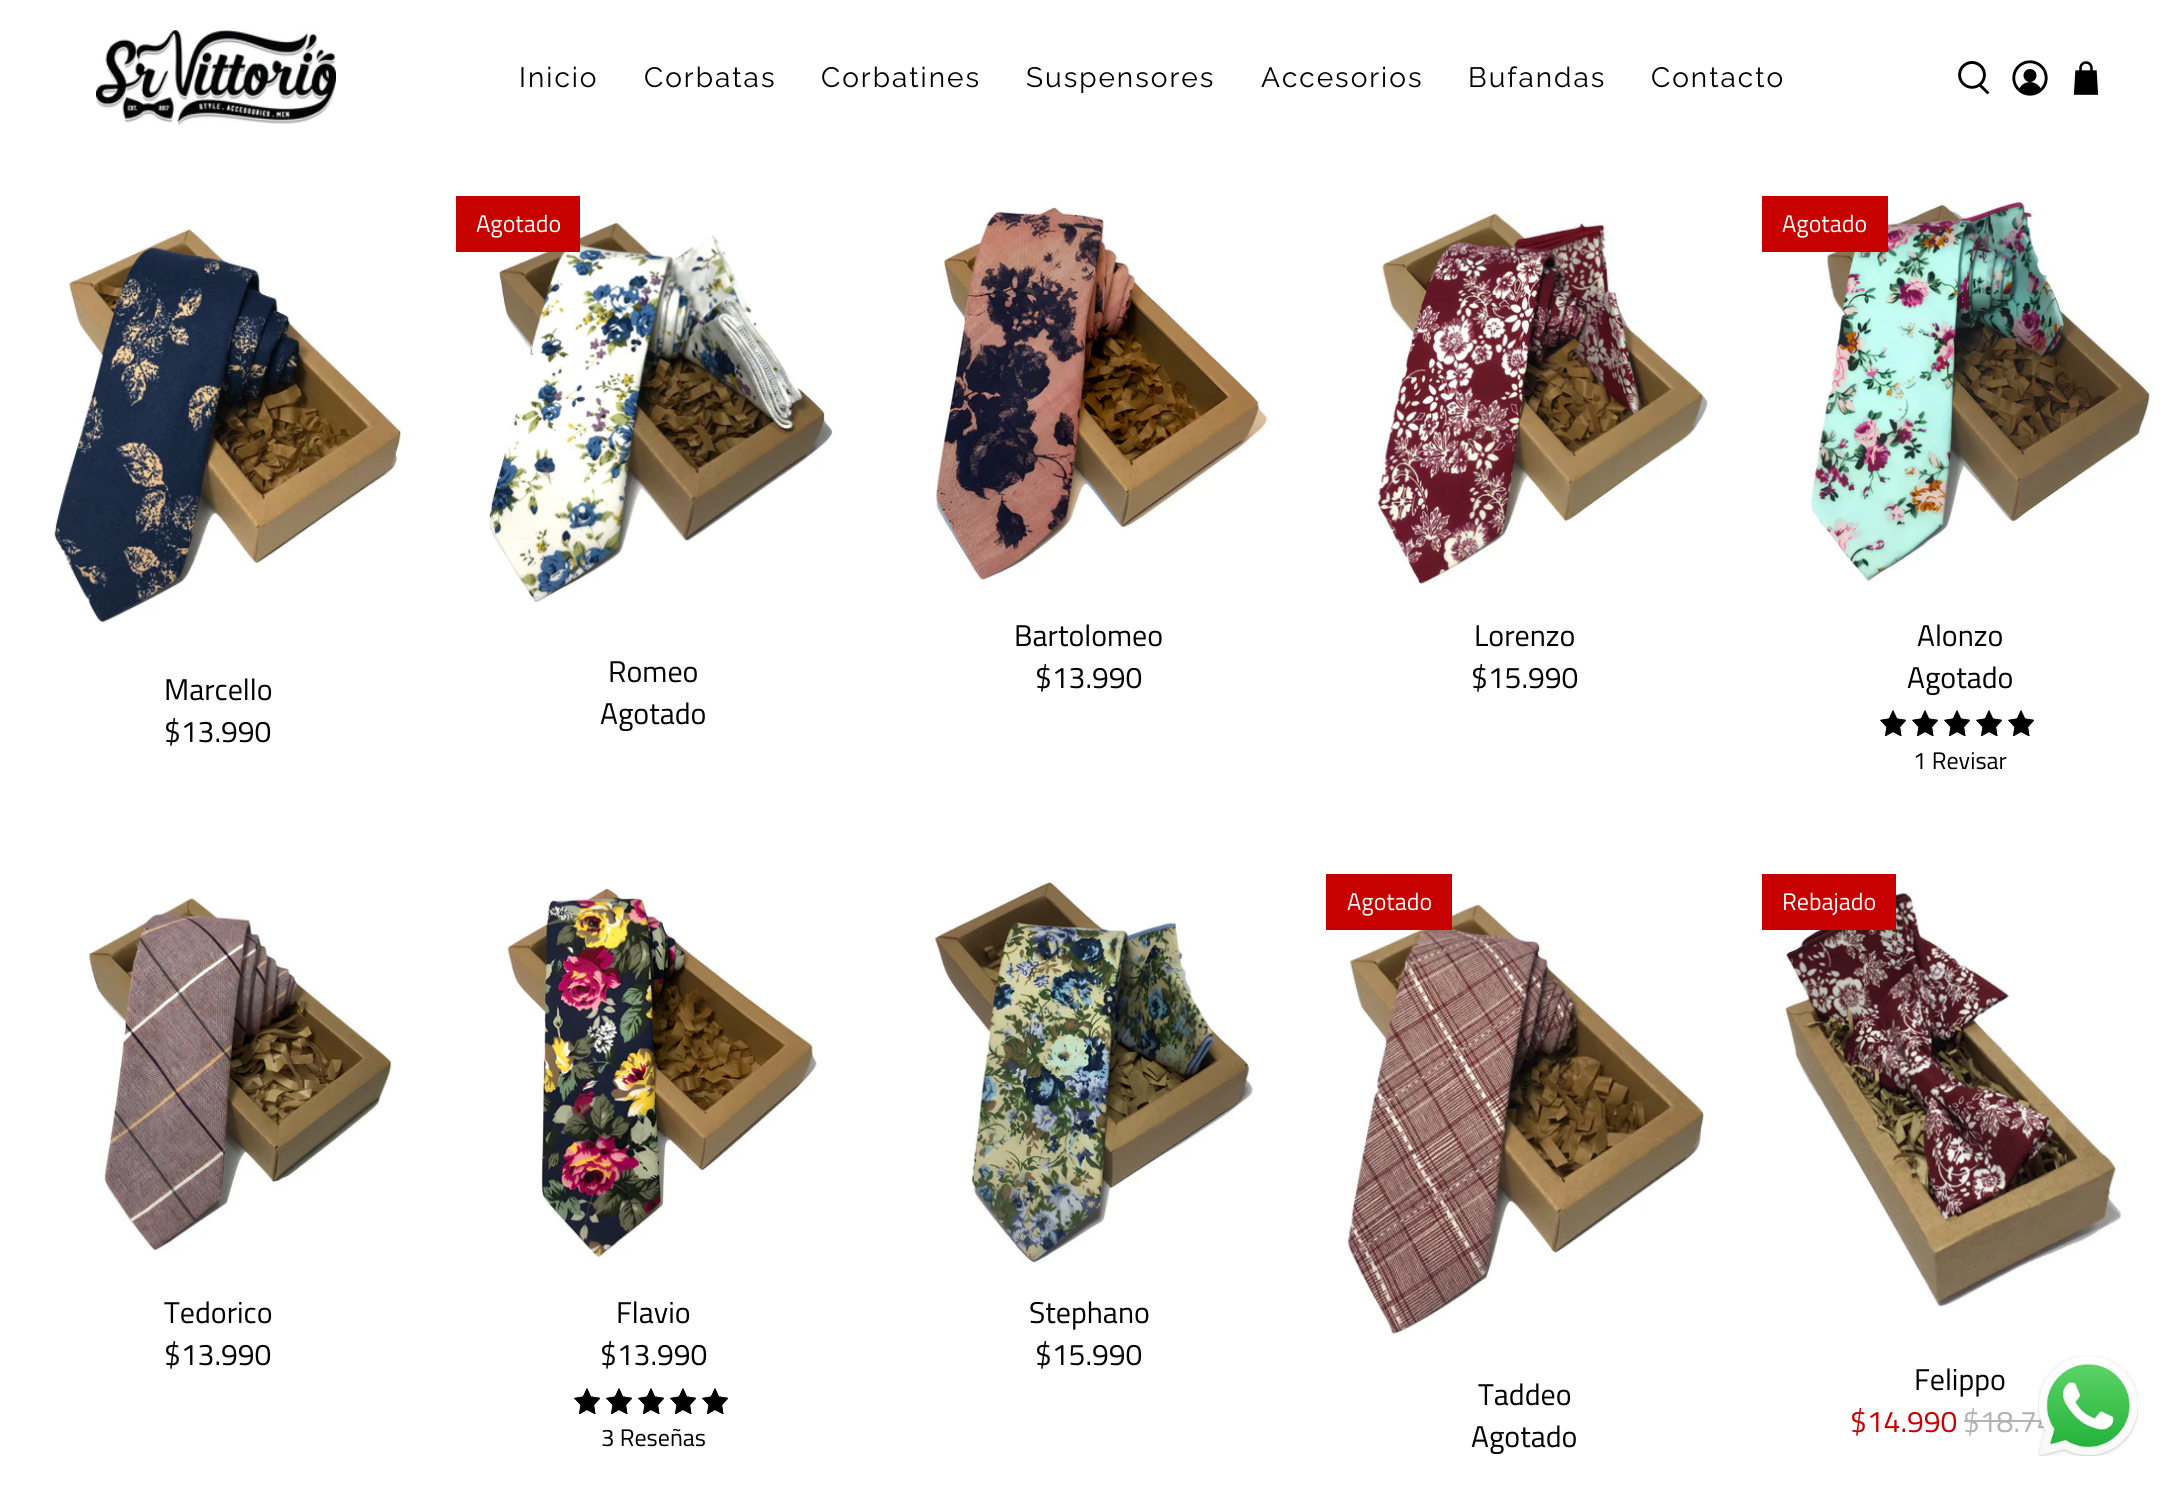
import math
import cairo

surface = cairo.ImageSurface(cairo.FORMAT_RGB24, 2178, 1496)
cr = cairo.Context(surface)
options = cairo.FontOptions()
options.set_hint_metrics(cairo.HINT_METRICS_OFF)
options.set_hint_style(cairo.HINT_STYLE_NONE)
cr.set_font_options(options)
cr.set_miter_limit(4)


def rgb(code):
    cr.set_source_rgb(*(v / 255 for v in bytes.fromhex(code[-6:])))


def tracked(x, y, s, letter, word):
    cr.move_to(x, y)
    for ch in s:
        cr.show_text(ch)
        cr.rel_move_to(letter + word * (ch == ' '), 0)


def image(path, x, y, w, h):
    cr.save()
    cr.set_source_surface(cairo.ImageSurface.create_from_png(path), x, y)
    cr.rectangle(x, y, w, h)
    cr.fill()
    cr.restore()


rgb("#ffffff")
cr.paint()
image("img/1.png", 96, 30, 240, 96)
image("img/2.png", 1958, 61, 32, 34)
image("img/3.png", 2012, 60, 36, 36)
image("img/4.png", 2073, 61, 26, 34)
image("img/5.png", 489, 222, 346, 381)
rgb("#c70000")
cr.rectangle(456, 196, 124, 56)
cr.fill()
image("img/6.png", 934, 203, 336, 379)
image("img/7.png", 1374, 212, 334, 373)
image("img/8.png", 1810, 196, 341, 388)
cr.rectangle(1762, 196, 126, 56)
cr.fill()
cr.save()
cr.rectangle(1880, 710, 26, 26)
cr.clip()
rgb("#000000")
cr.new_path()
cr.move_to(1893, 710)
cr.line_to(1889, 718.5)
cr.line_to(1880, 720)
cr.line_to(1886.5, 727)
cr.line_to(1885, 736.5)
cr.line_to(1893, 732)
cr.line_to(1901.5, 736.5)
cr.line_to(1900, 727)
cr.line_to(1906.5, 720)
cr.line_to(1897, 718.5)
cr.close_path()
cr.fill()
cr.restore()
cr.save()
cr.rectangle(1880, 710, 26, 26)
cr.clip()
cr.new_path()
cr.move_to(1893, 710)
cr.line_to(1897, 718.5)
cr.line_to(1906.5, 720)
cr.line_to(1900, 727)
cr.line_to(1901.5, 736.5)
cr.line_to(1893, 732)
cr.line_to(1885, 736.5)
cr.line_to(1886.5, 727)
cr.line_to(1880, 720)
cr.line_to(1889, 718.5)
cr.close_path()
cr.clip()
cr.new_path()
cr.move_to(1893, 710)
cr.line_to(1897, 718.5)
cr.line_to(1906.5, 720)
cr.line_to(1900, 727)
cr.line_to(1901.5, 736.5)
cr.line_to(1893, 732)
cr.line_to(1885, 736.5)
cr.line_to(1886.5, 727)
cr.line_to(1880, 720)
cr.line_to(1889, 718.5)
cr.close_path()
rgb("#000000")
cr.set_line_width(3.8)
cr.set_line_cap(cairo.LINE_CAP_ROUND)
cr.set_line_join(cairo.LINE_JOIN_ROUND)
cr.stroke()
cr.restore()
cr.save()
cr.rectangle(1912, 710, 26, 26)
cr.clip()
rgb("#000000")
cr.new_path()
cr.move_to(1925, 710)
cr.line_to(1921, 718.5)
cr.line_to(1912, 720)
cr.line_to(1918.5, 727)
cr.line_to(1917, 736.5)
cr.line_to(1925, 732)
cr.line_to(1933.5, 736.5)
cr.line_to(1932, 727)
cr.line_to(1938.5, 720)
cr.line_to(1929, 718.5)
cr.close_path()
cr.fill()
cr.restore()
cr.save()
cr.rectangle(1912, 710, 26, 26)
cr.clip()
cr.new_path()
cr.move_to(1925, 710)
cr.line_to(1929, 718.5)
cr.line_to(1938.5, 720)
cr.line_to(1932, 727)
cr.line_to(1933.5, 736.5)
cr.line_to(1925, 732)
cr.line_to(1917, 736.5)
cr.line_to(1918.5, 727)
cr.line_to(1912, 720)
cr.line_to(1921, 718.5)
cr.close_path()
cr.clip()
cr.new_path()
cr.move_to(1925, 710)
cr.line_to(1929, 718.5)
cr.line_to(1938.5, 720)
cr.line_to(1932, 727)
cr.line_to(1933.5, 736.5)
cr.line_to(1925, 732)
cr.line_to(1917, 736.5)
cr.line_to(1918.5, 727)
cr.line_to(1912, 720)
cr.line_to(1921, 718.5)
cr.close_path()
rgb("#000000")
cr.set_line_width(3.8)
cr.set_line_cap(cairo.LINE_CAP_ROUND)
cr.set_line_join(cairo.LINE_JOIN_ROUND)
cr.stroke()
cr.restore()
cr.save()
cr.rectangle(1944, 710, 26, 26)
cr.clip()
rgb("#000000")
cr.new_path()
cr.move_to(1957, 710)
cr.line_to(1953, 718.5)
cr.line_to(1944, 720)
cr.line_to(1950.5, 727)
cr.line_to(1949, 736.5)
cr.line_to(1957, 732)
cr.line_to(1965.5, 736.5)
cr.line_to(1964, 727)
cr.line_to(1970.5, 720)
cr.line_to(1961, 718.5)
cr.close_path()
cr.fill()
cr.restore()
cr.save()
cr.rectangle(1944, 710, 26, 26)
cr.clip()
cr.new_path()
cr.move_to(1957, 710)
cr.line_to(1961, 718.5)
cr.line_to(1970.5, 720)
cr.line_to(1964, 727)
cr.line_to(1965.5, 736.5)
cr.line_to(1957, 732)
cr.line_to(1949, 736.5)
cr.line_to(1950.5, 727)
cr.line_to(1944, 720)
cr.line_to(1953, 718.5)
cr.close_path()
cr.clip()
cr.new_path()
cr.move_to(1957, 710)
cr.line_to(1961, 718.5)
cr.line_to(1970.5, 720)
cr.line_to(1964, 727)
cr.line_to(1965.5, 736.5)
cr.line_to(1957, 732)
cr.line_to(1949, 736.5)
cr.line_to(1950.5, 727)
cr.line_to(1944, 720)
cr.line_to(1953, 718.5)
cr.close_path()
rgb("#000000")
cr.set_line_width(3.8)
cr.set_line_cap(cairo.LINE_CAP_ROUND)
cr.set_line_join(cairo.LINE_JOIN_ROUND)
cr.stroke()
cr.restore()
cr.save()
cr.rectangle(1976, 710, 26, 26)
cr.clip()
rgb("#000000")
cr.new_path()
cr.move_to(1989, 710)
cr.line_to(1985, 718.5)
cr.line_to(1976, 720)
cr.line_to(1982.5, 727)
cr.line_to(1981, 736.5)
cr.line_to(1989, 732)
cr.line_to(1997.5, 736.5)
cr.line_to(1996, 727)
cr.line_to(2002.5, 720)
cr.line_to(1993, 718.5)
cr.close_path()
cr.fill()
cr.restore()
cr.save()
cr.rectangle(1976, 710, 26, 26)
cr.clip()
cr.new_path()
cr.move_to(1989, 710)
cr.line_to(1993, 718.5)
cr.line_to(2002.5, 720)
cr.line_to(1996, 727)
cr.line_to(1997.5, 736.5)
cr.line_to(1989, 732)
cr.line_to(1981, 736.5)
cr.line_to(1982.5, 727)
cr.line_to(1976, 720)
cr.line_to(1985, 718.5)
cr.close_path()
cr.clip()
cr.new_path()
cr.move_to(1989, 710)
cr.line_to(1993, 718.5)
cr.line_to(2002.5, 720)
cr.line_to(1996, 727)
cr.line_to(1997.5, 736.5)
cr.line_to(1989, 732)
cr.line_to(1981, 736.5)
cr.line_to(1982.5, 727)
cr.line_to(1976, 720)
cr.line_to(1985, 718.5)
cr.close_path()
rgb("#000000")
cr.set_line_width(3.8)
cr.set_line_cap(cairo.LINE_CAP_ROUND)
cr.set_line_join(cairo.LINE_JOIN_ROUND)
cr.stroke()
cr.restore()
cr.save()
cr.rectangle(2008, 710, 26, 26)
cr.clip()
rgb("#000000")
cr.new_path()
cr.move_to(2021, 710)
cr.line_to(2017, 718.5)
cr.line_to(2008, 720)
cr.line_to(2014.5, 727)
cr.line_to(2013, 736.5)
cr.line_to(2021, 732)
cr.line_to(2029.5, 736.5)
cr.line_to(2028, 727)
cr.line_to(2034.5, 720)
cr.line_to(2025, 718.5)
cr.close_path()
cr.fill()
cr.restore()
cr.save()
cr.rectangle(2008, 710, 26, 26)
cr.clip()
cr.new_path()
cr.move_to(2021, 710)
cr.line_to(2025, 718.5)
cr.line_to(2034.5, 720)
cr.line_to(2028, 727)
cr.line_to(2029.5, 736.5)
cr.line_to(2021, 732)
cr.line_to(2013, 736.5)
cr.line_to(2014.5, 727)
cr.line_to(2008, 720)
cr.line_to(2017, 718.5)
cr.close_path()
cr.clip()
cr.new_path()
cr.move_to(2021, 710)
cr.line_to(2025, 718.5)
cr.line_to(2034.5, 720)
cr.line_to(2028, 727)
cr.line_to(2029.5, 736.5)
cr.line_to(2021, 732)
cr.line_to(2013, 736.5)
cr.line_to(2014.5, 727)
cr.line_to(2008, 720)
cr.line_to(2017, 718.5)
cr.close_path()
rgb("#000000")
cr.set_line_width(3.8)
cr.set_line_cap(cairo.LINE_CAP_ROUND)
cr.set_line_join(cairo.LINE_JOIN_ROUND)
cr.stroke()
cr.restore()
image("img/9.png", 54, 229, 348, 393)
image("img/10.png", 87, 897, 305, 356)
image("img/11.png", 507, 888, 310, 374)
cr.save()
cr.rectangle(574, 1388, 26, 26)
cr.clip()
rgb("#000000")
cr.new_path()
cr.move_to(587, 1388)
cr.line_to(583, 1396.5)
cr.line_to(574, 1398)
cr.line_to(580.5, 1405)
cr.line_to(579, 1414.5)
cr.line_to(587, 1410)
cr.line_to(595.5, 1414.5)
cr.line_to(594, 1405)
cr.line_to(600.5, 1398)
cr.line_to(591, 1396.5)
cr.close_path()
cr.fill()
cr.restore()
cr.save()
cr.rectangle(574, 1388, 26, 26)
cr.clip()
cr.new_path()
cr.move_to(587, 1388)
cr.line_to(591, 1396.5)
cr.line_to(600.5, 1398)
cr.line_to(594, 1405)
cr.line_to(595.5, 1414.5)
cr.line_to(587, 1410)
cr.line_to(579, 1414.5)
cr.line_to(580.5, 1405)
cr.line_to(574, 1398)
cr.line_to(583, 1396.5)
cr.close_path()
cr.clip()
cr.new_path()
cr.move_to(587, 1388)
cr.line_to(591, 1396.5)
cr.line_to(600.5, 1398)
cr.line_to(594, 1405)
cr.line_to(595.5, 1414.5)
cr.line_to(587, 1410)
cr.line_to(579, 1414.5)
cr.line_to(580.5, 1405)
cr.line_to(574, 1398)
cr.line_to(583, 1396.5)
cr.close_path()
rgb("#000000")
cr.set_line_width(3.8)
cr.set_line_cap(cairo.LINE_CAP_ROUND)
cr.set_line_join(cairo.LINE_JOIN_ROUND)
cr.stroke()
cr.restore()
cr.save()
cr.rectangle(606, 1388, 26, 26)
cr.clip()
rgb("#000000")
cr.new_path()
cr.move_to(619, 1388)
cr.line_to(615, 1396.5)
cr.line_to(606, 1398)
cr.line_to(612.5, 1405)
cr.line_to(611, 1414.5)
cr.line_to(619, 1410)
cr.line_to(627.5, 1414.5)
cr.line_to(626, 1405)
cr.line_to(632.5, 1398)
cr.line_to(623, 1396.5)
cr.close_path()
cr.fill()
cr.restore()
cr.save()
cr.rectangle(606, 1388, 26, 26)
cr.clip()
cr.new_path()
cr.move_to(619, 1388)
cr.line_to(623, 1396.5)
cr.line_to(632.5, 1398)
cr.line_to(626, 1405)
cr.line_to(627.5, 1414.5)
cr.line_to(619, 1410)
cr.line_to(611, 1414.5)
cr.line_to(612.5, 1405)
cr.line_to(606, 1398)
cr.line_to(615, 1396.5)
cr.close_path()
cr.clip()
cr.new_path()
cr.move_to(619, 1388)
cr.line_to(623, 1396.5)
cr.line_to(632.5, 1398)
cr.line_to(626, 1405)
cr.line_to(627.5, 1414.5)
cr.line_to(619, 1410)
cr.line_to(611, 1414.5)
cr.line_to(612.5, 1405)
cr.line_to(606, 1398)
cr.line_to(615, 1396.5)
cr.close_path()
rgb("#000000")
cr.set_line_width(3.8)
cr.set_line_cap(cairo.LINE_CAP_ROUND)
cr.set_line_join(cairo.LINE_JOIN_ROUND)
cr.stroke()
cr.restore()
cr.save()
cr.rectangle(638, 1388, 26, 26)
cr.clip()
rgb("#000000")
cr.new_path()
cr.move_to(651, 1388)
cr.line_to(647, 1396.5)
cr.line_to(638, 1398)
cr.line_to(644.5, 1405)
cr.line_to(643, 1414.5)
cr.line_to(651, 1410)
cr.line_to(659.5, 1414.5)
cr.line_to(658, 1405)
cr.line_to(664.5, 1398)
cr.line_to(655, 1396.5)
cr.close_path()
cr.fill()
cr.restore()
cr.save()
cr.rectangle(638, 1388, 26, 26)
cr.clip()
cr.new_path()
cr.move_to(651, 1388)
cr.line_to(655, 1396.5)
cr.line_to(664.5, 1398)
cr.line_to(658, 1405)
cr.line_to(659.5, 1414.5)
cr.line_to(651, 1410)
cr.line_to(643, 1414.5)
cr.line_to(644.5, 1405)
cr.line_to(638, 1398)
cr.line_to(647, 1396.5)
cr.close_path()
cr.clip()
cr.new_path()
cr.move_to(651, 1388)
cr.line_to(655, 1396.5)
cr.line_to(664.5, 1398)
cr.line_to(658, 1405)
cr.line_to(659.5, 1414.5)
cr.line_to(651, 1410)
cr.line_to(643, 1414.5)
cr.line_to(644.5, 1405)
cr.line_to(638, 1398)
cr.line_to(647, 1396.5)
cr.close_path()
rgb("#000000")
cr.set_line_width(3.8)
cr.set_line_cap(cairo.LINE_CAP_ROUND)
cr.set_line_join(cairo.LINE_JOIN_ROUND)
cr.stroke()
cr.restore()
cr.save()
cr.rectangle(670, 1388, 26, 26)
cr.clip()
rgb("#000000")
cr.new_path()
cr.move_to(683, 1388)
cr.line_to(679, 1396.5)
cr.line_to(670, 1398)
cr.line_to(676.5, 1405)
cr.line_to(675, 1414.5)
cr.line_to(683, 1410)
cr.line_to(691.5, 1414.5)
cr.line_to(690, 1405)
cr.line_to(696.5, 1398)
cr.line_to(687, 1396.5)
cr.close_path()
cr.fill()
cr.restore()
cr.save()
cr.rectangle(670, 1388, 26, 26)
cr.clip()
cr.new_path()
cr.move_to(683, 1388)
cr.line_to(687, 1396.5)
cr.line_to(696.5, 1398)
cr.line_to(690, 1405)
cr.line_to(691.5, 1414.5)
cr.line_to(683, 1410)
cr.line_to(675, 1414.5)
cr.line_to(676.5, 1405)
cr.line_to(670, 1398)
cr.line_to(679, 1396.5)
cr.close_path()
cr.clip()
cr.new_path()
cr.move_to(683, 1388)
cr.line_to(687, 1396.5)
cr.line_to(696.5, 1398)
cr.line_to(690, 1405)
cr.line_to(691.5, 1414.5)
cr.line_to(683, 1410)
cr.line_to(675, 1414.5)
cr.line_to(676.5, 1405)
cr.line_to(670, 1398)
cr.line_to(679, 1396.5)
cr.close_path()
rgb("#000000")
cr.set_line_width(3.8)
cr.set_line_cap(cairo.LINE_CAP_ROUND)
cr.set_line_join(cairo.LINE_JOIN_ROUND)
cr.stroke()
cr.restore()
cr.save()
cr.rectangle(702, 1388, 26, 26)
cr.clip()
rgb("#000000")
cr.new_path()
cr.move_to(715, 1388)
cr.line_to(711, 1396.5)
cr.line_to(702, 1398)
cr.line_to(708.5, 1405)
cr.line_to(707, 1414.5)
cr.line_to(715, 1410)
cr.line_to(723.5, 1414.5)
cr.line_to(722, 1405)
cr.line_to(728.5, 1398)
cr.line_to(719, 1396.5)
cr.close_path()
cr.fill()
cr.restore()
cr.save()
cr.rectangle(702, 1388, 26, 26)
cr.clip()
cr.new_path()
cr.move_to(715, 1388)
cr.line_to(719, 1396.5)
cr.line_to(728.5, 1398)
cr.line_to(722, 1405)
cr.line_to(723.5, 1414.5)
cr.line_to(715, 1410)
cr.line_to(707, 1414.5)
cr.line_to(708.5, 1405)
cr.line_to(702, 1398)
cr.line_to(711, 1396.5)
cr.close_path()
cr.clip()
cr.new_path()
cr.move_to(715, 1388)
cr.line_to(719, 1396.5)
cr.line_to(728.5, 1398)
cr.line_to(722, 1405)
cr.line_to(723.5, 1414.5)
cr.line_to(715, 1410)
cr.line_to(707, 1414.5)
cr.line_to(708.5, 1405)
cr.line_to(702, 1398)
cr.line_to(711, 1396.5)
cr.close_path()
rgb("#000000")
cr.set_line_width(3.8)
cr.set_line_cap(cairo.LINE_CAP_ROUND)
cr.set_line_join(cairo.LINE_JOIN_ROUND)
cr.stroke()
cr.restore()
image("img/12.png", 935, 881, 319, 382)
image("img/13.png", 1346, 904, 358, 431)
cr.rectangle(1326, 874, 126, 56)
cr.fill()
image("img/14.png", 1785, 890, 337, 418)
cr.rectangle(1762, 874, 134, 56)
cr.fill()
rgb("#b3b3b3")
cr.rectangle(1964, 1420, 78, 2)
cr.fill()
cr.select_font_face("Raleway")
cr.set_font_size(28)
rgb("#000000")
for x, y, s in [
    (519, 87, "Inicio"),
    (644, 87, "Corbatas"),
    (821, 87, "Corbatines"),
    (1026, 87, "Suspensores"),
    (1261, 87, "Accesorios"),
    (1468, 87, "Bufandas"),
    (1651, 87, "Contacto"),
]:
    tracked(x, y, s, 2, 0)
cr.select_font_face("Titillium Web")
cr.set_font_size(24)
rgb("#ffffff")
cr.move_to(476, 232)
cr.show_text("Agotado")
cr.set_font_size(30)
rgb("#000000")
for x, y, s in [
    (608, 682, "Romeo"),
    (600, 724, "Agotado"),
    (1014, 646, "Bartolomeo"),
    (1035, 688, "$13.990"),
    (1474, 646, "Lorenzo"),
    (1471, 688, "$15.990"),
]:
    cr.move_to(x, y)
    cr.show_text(s)
cr.set_font_size(24)
rgb("#ffffff")
cr.move_to(1782, 232)
cr.show_text("Agotado")
cr.set_font_size(30)
rgb("#000000")
cr.move_to(1917, 646)
cr.show_text("Alonzo")
cr.move_to(1907, 688)
cr.show_text("Agotado")
cr.set_font_size(24)
cr.move_to(1913, 769)
cr.show_text("1 Revisar")
cr.set_font_size(30)
for x, y, s in [
    (164, 700, "Marcello"),
    (164, 742, "$13.990"),
    (164, 1323, "Tedorico"),
    (164, 1365, "$13.990"),
    (616, 1323, "Flavio"),
    (600, 1365, "$13.990"),
]:
    cr.move_to(x, y)
    cr.show_text(s)
cr.set_font_size(24)
cr.move_to(601, 1446)
cr.show_text("3 Reseñas")
cr.set_font_size(30)
cr.move_to(1029, 1323)
cr.show_text("Stephano")
cr.move_to(1035, 1365)
cr.show_text("$15.990")
cr.set_font_size(24)
rgb("#ffffff")
cr.move_to(1347, 910)
cr.show_text("Agotado")
cr.set_font_size(30)
rgb("#000000")
cr.move_to(1478, 1405)
cr.show_text("Taddeo")
cr.move_to(1471, 1447)
cr.show_text("Agotado")
cr.set_font_size(24)
rgb("#ffffff")
cr.move_to(1782, 910)
cr.show_text("Rebajado")
cr.set_font_size(30)
rgb("#000000")
cr.move_to(1914, 1390)
cr.show_text("Felippo")
rgb("#c70000")
cr.move_to(1850, 1432)
cr.show_text("$14.990")
rgb("#b3b3b3")
cr.move_to(1963, 1432)
cr.show_text("$18.74")
image("img/15.png", 2038, 1356, 100, 100)
surface.write_to_png("page.png")
